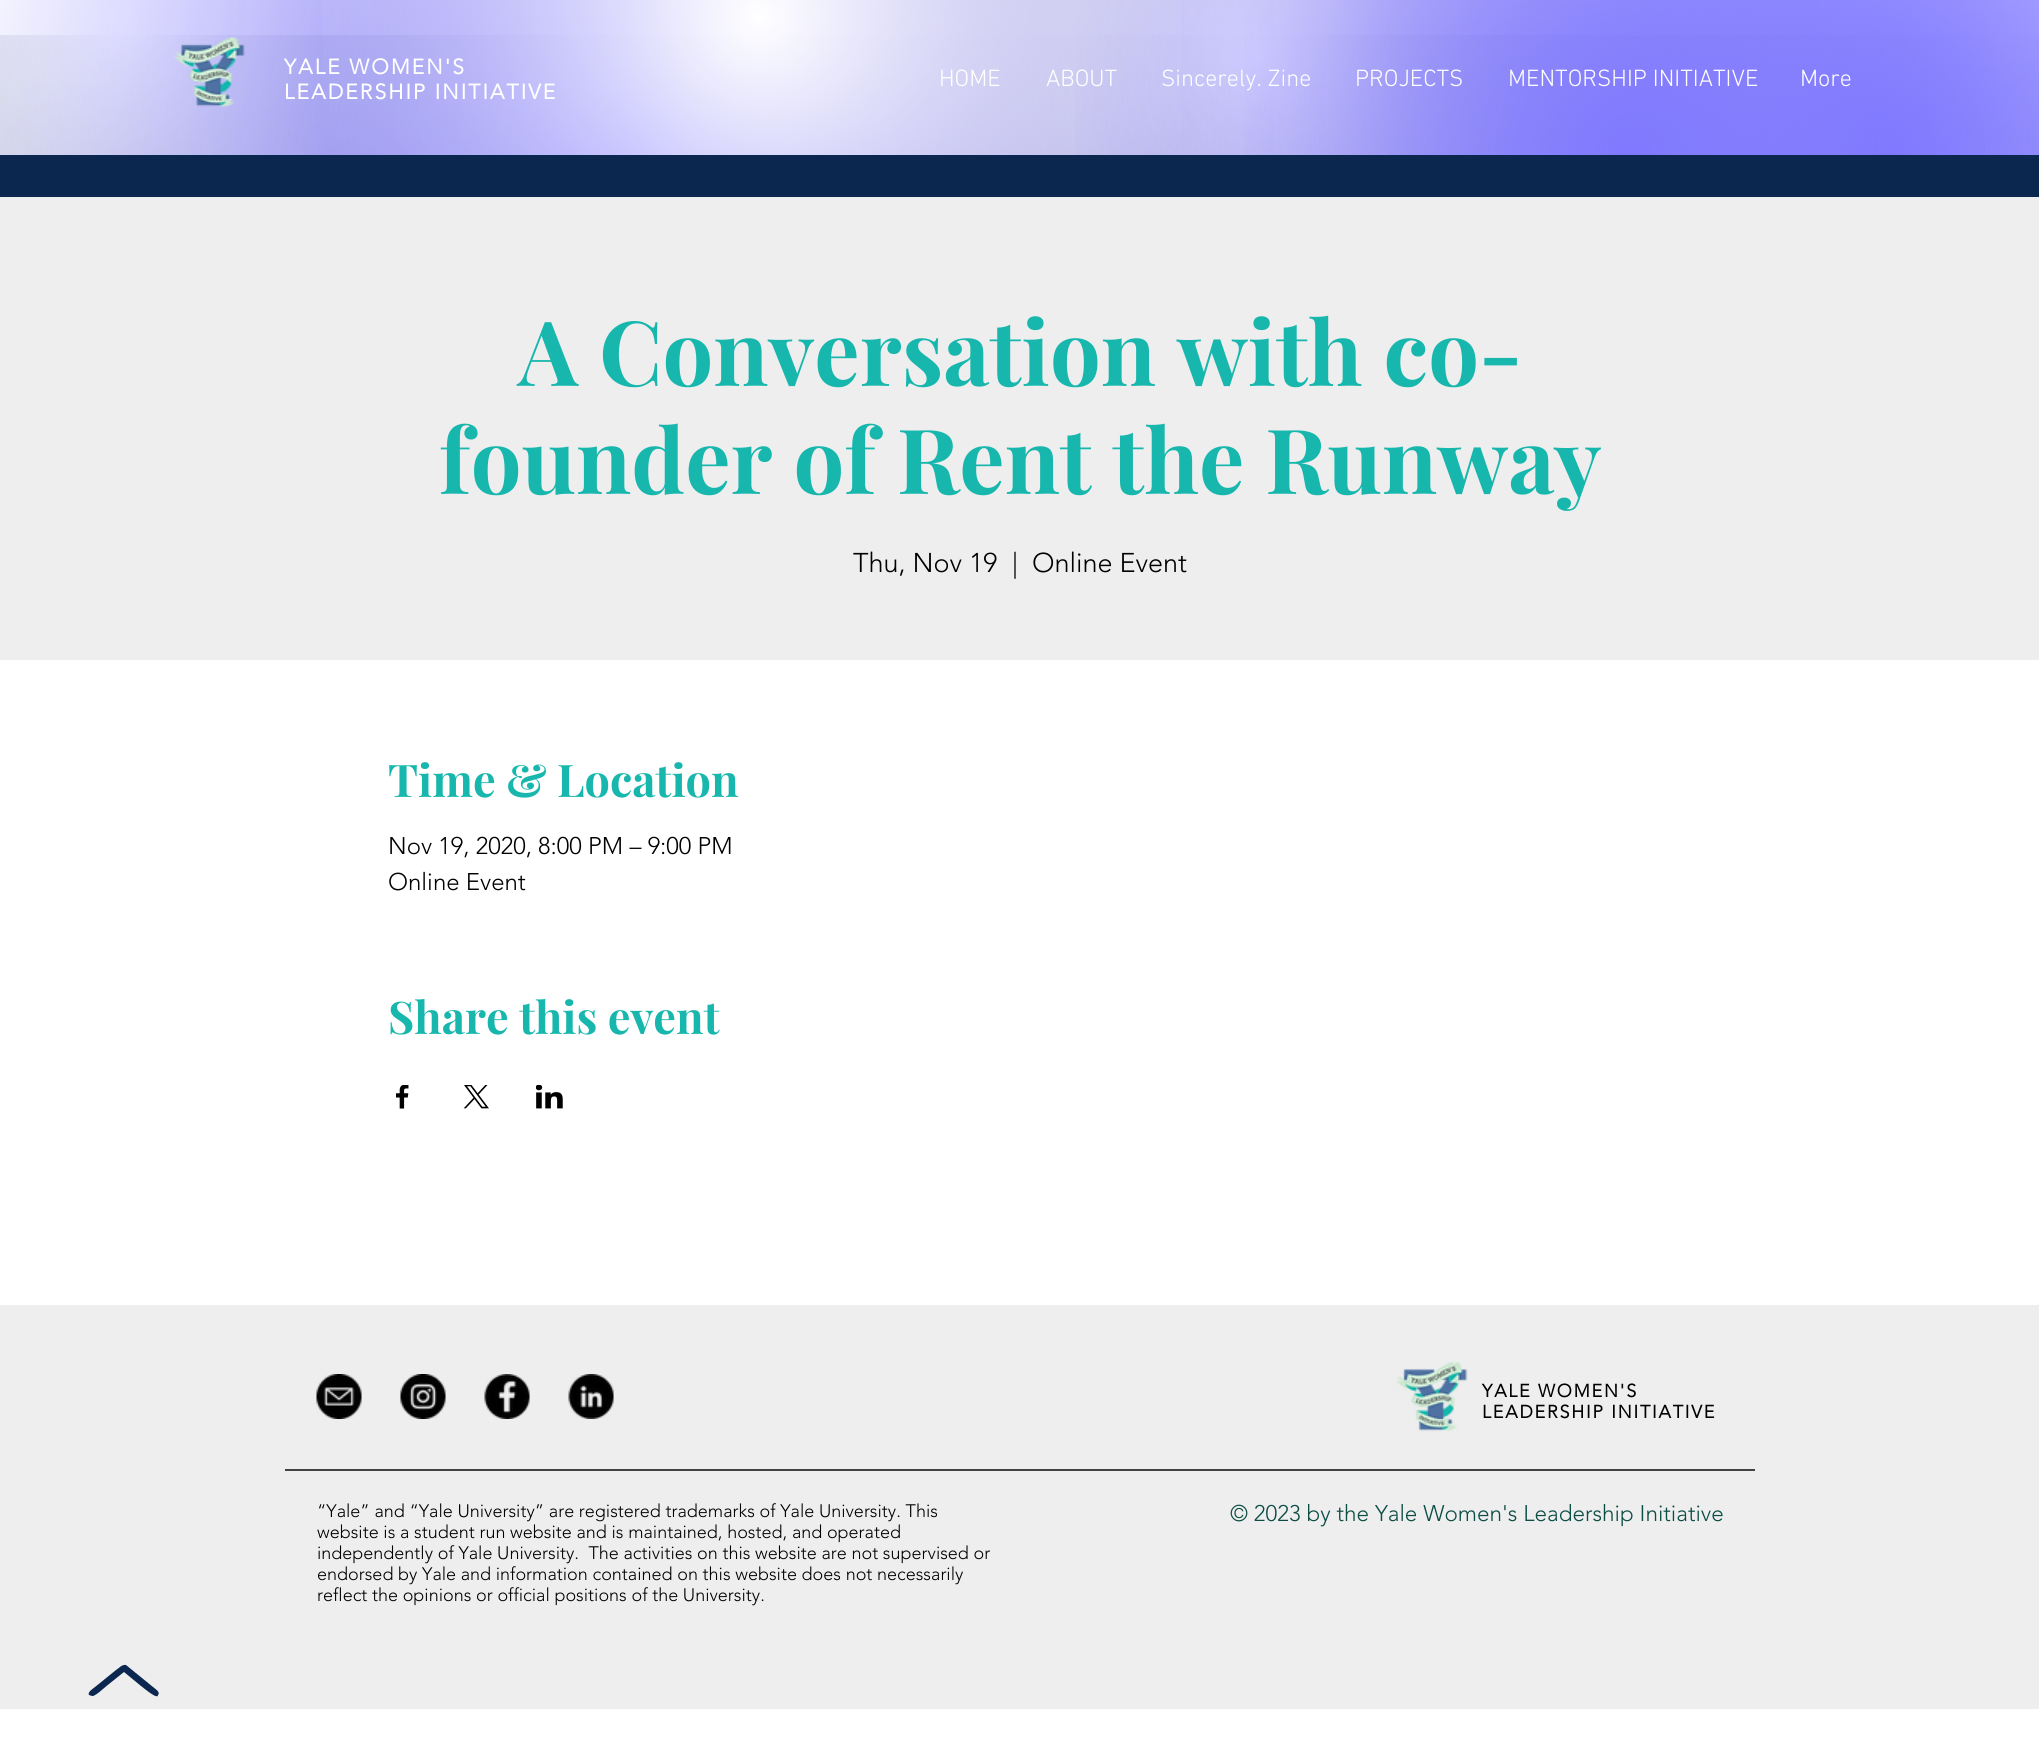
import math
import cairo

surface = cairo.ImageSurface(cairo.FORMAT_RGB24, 2039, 1753)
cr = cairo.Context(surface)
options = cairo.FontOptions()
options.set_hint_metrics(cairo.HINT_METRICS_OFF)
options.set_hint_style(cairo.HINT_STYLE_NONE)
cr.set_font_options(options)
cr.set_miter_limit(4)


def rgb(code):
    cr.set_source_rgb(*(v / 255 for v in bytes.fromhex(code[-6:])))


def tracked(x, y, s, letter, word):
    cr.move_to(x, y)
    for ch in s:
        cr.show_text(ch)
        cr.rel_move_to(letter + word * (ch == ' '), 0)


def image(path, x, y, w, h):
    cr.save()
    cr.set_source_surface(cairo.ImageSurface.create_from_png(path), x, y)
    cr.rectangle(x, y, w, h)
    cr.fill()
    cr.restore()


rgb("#ffffff")
cr.paint()
rgb("#0b274f")
cr.rectangle(0, 35, 2039, 162)
cr.fill()
gradient = cairo.RadialGradient(998, 77, 0, 998, 77, 1045)
gradient.add_color_stop_rgba(0, 0.055, 0.035, 0.169, 1)
gradient.add_color_stop_rgba(1, 0.055, 0.035, 0.169, 0)
cr.set_source(gradient)
cr.rectangle(0, 0, 2016, 155)
cr.fill()
gradient = cairo.RadialGradient(1259, 58, 0, 1259, 58, 1263)
gradient.add_color_stop_rgba(0, 1, 1, 1, 1)
gradient.add_color_stop_rgba(0.7, 1, 1, 1, 0)
cr.set_source(gradient)
cr.rectangle(395, 0, 1644, 155)
cr.fill()
gradient = cairo.RadialGradient(126, 19, 0, 126, 19, 1919)
gradient.add_color_stop_rgba(0, 1, 1, 1, 1)
gradient.add_color_stop_rgba(0.7, 1, 1, 1, 0)
cr.set_source(gradient)
cr.rectangle(0, 0, 1389, 155)
cr.fill()
gradient = cairo.RadialGradient(630, 149, 0, 630, 149, 1418)
gradient.add_color_stop_rgba(0, 0.502, 0.475, 1, 0.99)
gradient.add_color_stop_rgba(0.5, 0.502, 0.475, 1, 0)
cr.set_source(gradient)
cr.rectangle(0, 0, 1325, 155)
cr.fill()
gradient = cairo.RadialGradient(2001, 36, 0, 2001, 36, 2005)
gradient.add_color_stop_rgba(0, 1, 1, 1, 1)
gradient.add_color_stop_rgba(0.4, 1, 1, 1, 0)
cr.set_source(gradient)
cr.rectangle(1274, 0, 765, 155)
cr.fill()
gradient = cairo.RadialGradient(759, 17, 0, 759, 17, 1288)
gradient.add_color_stop_rgba(0, 1, 1, 1, 1)
gradient.add_color_stop_rgba(0.35, 1, 1, 1, 0)
cr.set_source(gradient)
cr.rectangle(323, 0, 858, 155)
cr.fill()
gradient = cairo.RadialGradient(1887, 150, 0, 1887, 150, 1893)
gradient.add_color_stop_rgba(0, 0.502, 0.475, 1, 1)
gradient.add_color_stop_rgba(0.35, 0.502, 0.475, 1, 0)
cr.set_source(gradient)
cr.rectangle(1244, 0, 795, 155)
cr.fill()
gradient = cairo.RadialGradient(1631, 155, 0, 1631, 155, 1639)
gradient.add_color_stop_rgba(0, 0.502, 0.475, 1, 1)
gradient.add_color_stop_rgba(0.35, 0.502, 0.475, 1, 0)
cr.set_source(gradient)
cr.rectangle(1075, 0, 964, 155)
cr.fill()
image("img/1.png", 173, 37, 72, 70)
rgb("#eeeeee")
cr.rectangle(0, 197, 2039, 463)
cr.fill()
image("img/2.png", 396, 1085, 13, 24)
image("img/3.png", 463, 1085, 26, 24)
image("img/4.png", 536, 1085, 27, 24)
cr.rectangle(0, 1305, 2039, 404)
cr.fill()
image("img/5.png", 316, 1374, 46, 45)
image("img/6.png", 400, 1374, 46, 45)
image("img/7.png", 484, 1374, 46, 45)
image("img/8.png", 568, 1374, 46, 45)
image("img/9.png", 1396, 1361, 72, 71)
rgb("#424242")
cr.rectangle(285, 1469, 1470, 2)
cr.fill()
rgb("#0b274f")
cr.new_path()
cr.move_to(156, 1696)
cr.curve_to(153, 1697, 128, 1675, 124, 1672)
cr.line_to(109, 1684)
cr.curve_to(106, 1686, 95, 1697, 92, 1696)
cr.line_to(89, 1695)
cr.curve_to(87, 1692, 94, 1688, 95, 1687)
cr.line_to(116, 1670)
cr.curve_to(118, 1669, 122, 1664, 126, 1665)
cr.line_to(153, 1687)
cr.curve_to(154, 1688, 161, 1692, 158, 1695)
cr.curve_to(158, 1696, 157, 1697, 156, 1696)
cr.close_path()
cr.fill()
cr.select_font_face("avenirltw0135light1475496", cairo.FONT_SLANT_NORMAL, cairo.FONT_WEIGHT_BOLD)
cr.set_font_size(21)
rgb("#ffffff")
tracked(284, 74, "YALE WOMEN'S", 2.1, 0)
tracked(284, 99, "LEADERSHIP INITIATIVE", 2.1, 0)
cr.select_font_face("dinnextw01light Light")
cr.set_font_size(24)
for x, y, s in [
    (939, 86, "HOME"),
    (1046, 86, "ABOUT"),
    (1161, 86, "Sincerely. Zine"),
    (1355, 86, "PROJECTS"),
    (1508, 86, "MENTORSHIP INITIATIVE"),
    (1800, 86, "More"),
]:
    cr.move_to(x, y)
    cr.show_text(s)
cr.select_font_face("Playfair Display", cairo.FONT_SLANT_NORMAL, cairo.FONT_WEIGHT_BOLD)
cr.set_font_size(90)
rgb("#18b7ad")
cr.move_to(518, 386)
cr.show_text("A Conversation with co-")
cr.move_to(439, 494)
cr.show_text("founder of Rent the Runway")
cr.select_font_face("avenirltw0135light1475496 Light")
cr.set_font_size(27)
rgb("#000000")
for x, y, s in [
    (853, 572, "Thu, Nov 19"),
    (1012, 572, "|"),
    (1032, 572, "Online Event"),
]:
    cr.move_to(x, y)
    cr.show_text(s)
cr.select_font_face("Playfair Display", cairo.FONT_SLANT_NORMAL, cairo.FONT_WEIGHT_BOLD)
cr.set_font_size(45)
rgb("#18b7ad")
cr.move_to(388, 797)
cr.show_text("Time & Location")
cr.select_font_face("avenirltw0135light1475496 Light")
cr.set_font_size(24)
rgb("#000000")
cr.move_to(388, 854)
cr.show_text("Nov 19, 2020, 8:00 PM – 9:00 PM")
cr.move_to(388, 890)
cr.show_text("Online Event")
cr.select_font_face("Playfair Display", cairo.FONT_SLANT_NORMAL, cairo.FONT_WEIGHT_BOLD)
cr.set_font_size(45)
rgb("#18b7ad")
cr.move_to(388, 1034)
cr.show_text("Share this event")
cr.select_font_face("avenirltw0135light1475496", cairo.FONT_SLANT_NORMAL, cairo.FONT_WEIGHT_BOLD)
cr.set_font_size(18)
rgb("#000000")
tracked(1482, 1397, "YALE WOMEN'S", 1.8, 0)
tracked(1482, 1418, "LEADERSHIP INITIATIVE", 1.8, 0)
cr.select_font_face("avenirltw0135light1475496 Light")
for x, y, s in [
    (317, 1517, "“Yale” and “Yale University” are registered trademarks of Yale University. This"),
    (317, 1538, "website is a student run website and is maintained, hosted, and operated"),
    (317, 1559, "independently of Yale University.  The activities on this website are not supervised or"),
    (317, 1580, "endorsed by Yale and information contained on this website does not necessarily"),
    (317, 1601, "reflect the opinions or official positions of the University."),
]:
    cr.move_to(x, y)
    cr.show_text(s)
cr.set_font_size(22.5)
rgb("#0b4d44")
cr.move_to(1230, 1521)
cr.show_text("© 2023 by the Yale Women's Leadership Initiative")
surface.write_to_png("page.png")
